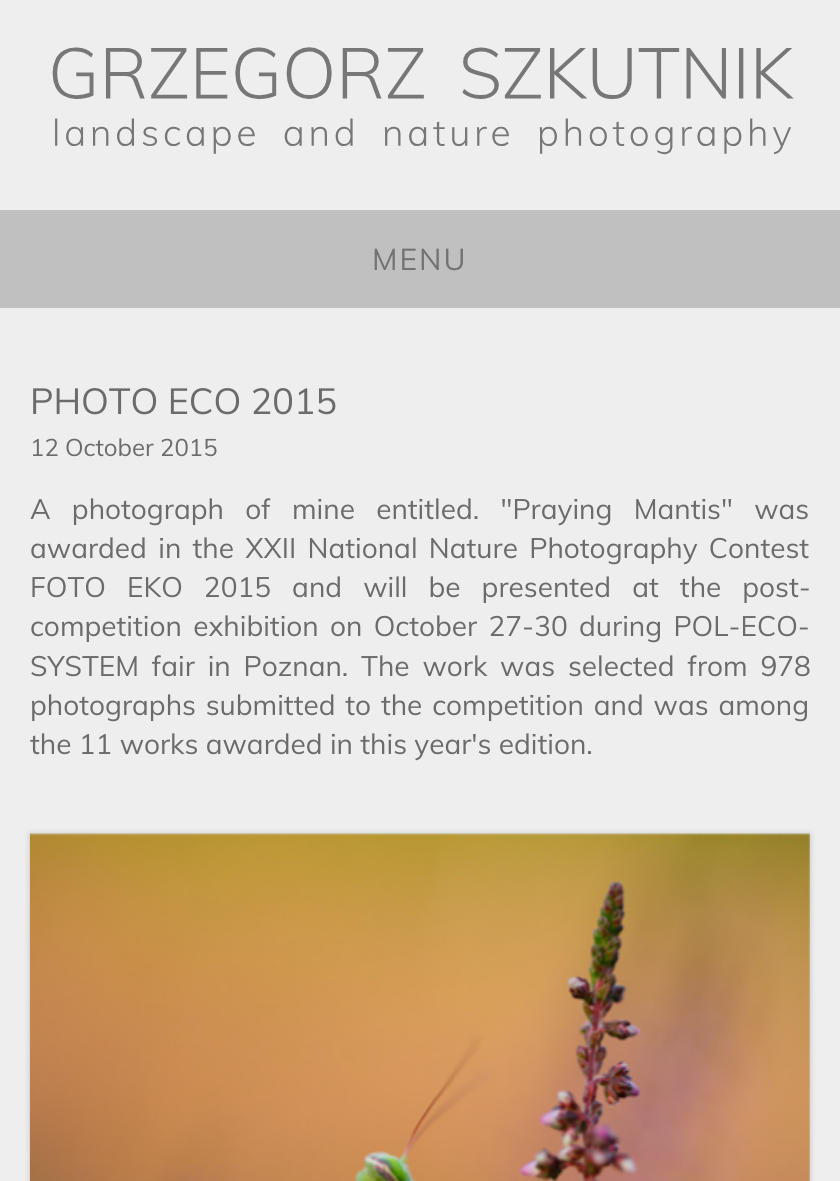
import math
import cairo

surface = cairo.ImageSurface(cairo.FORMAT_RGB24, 840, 1181)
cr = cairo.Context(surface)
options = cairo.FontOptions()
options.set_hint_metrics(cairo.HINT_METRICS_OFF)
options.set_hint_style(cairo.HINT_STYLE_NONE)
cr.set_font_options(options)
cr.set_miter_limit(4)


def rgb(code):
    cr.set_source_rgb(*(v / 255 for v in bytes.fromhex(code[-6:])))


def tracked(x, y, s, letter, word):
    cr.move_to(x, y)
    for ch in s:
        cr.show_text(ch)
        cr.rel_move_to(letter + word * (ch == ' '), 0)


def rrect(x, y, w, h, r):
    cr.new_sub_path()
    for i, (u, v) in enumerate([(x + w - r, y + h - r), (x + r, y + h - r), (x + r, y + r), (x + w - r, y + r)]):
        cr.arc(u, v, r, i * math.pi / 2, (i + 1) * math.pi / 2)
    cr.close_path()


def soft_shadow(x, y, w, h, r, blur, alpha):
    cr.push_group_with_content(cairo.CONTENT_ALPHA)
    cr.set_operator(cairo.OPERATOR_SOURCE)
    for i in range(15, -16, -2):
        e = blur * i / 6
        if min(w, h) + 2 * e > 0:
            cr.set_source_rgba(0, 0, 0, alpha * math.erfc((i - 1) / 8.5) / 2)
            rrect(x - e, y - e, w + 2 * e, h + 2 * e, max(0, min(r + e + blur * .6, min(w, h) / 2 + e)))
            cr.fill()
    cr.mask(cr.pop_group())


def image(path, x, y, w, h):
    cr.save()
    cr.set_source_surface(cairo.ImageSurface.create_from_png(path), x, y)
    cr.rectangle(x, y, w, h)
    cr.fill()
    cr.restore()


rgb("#eeeeee")
cr.paint()
image("img/1.png", 52, 47, 742, 108)
rgb("#c0c0c0")
cr.rectangle(0, 210, 840, 98)
cr.fill()
rgb("#000000")
soft_shadow(30, 834, 780, 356, 0, 3, 0.2)
image("img/2.png", 30, 833, 780, 348)
cr.select_font_face("Muli")
cr.set_font_size(30)
rgb("#737373")
tracked(372, 270, "MENU", 2, 0)
cr.set_font_size(36)
rgb("#6b6b6b")
cr.move_to(30, 414)
cr.show_text("PHOTO ECO 2015")
cr.set_font_size(24)
cr.move_to(30, 456)
cr.show_text("12 October 2015")
cr.set_font_size(28)
tracked(30, 519, "A photograph of mine entitled. \"Praying Mantis\" was", 0, 14)
tracked(30, 558, "awarded in the XXII National Nature Photography Contest", 0, 4)
tracked(30, 597, "FOTO EKO 2015 and will be presented at the post-", 0, 13.75)
tracked(30, 636, "competition exhibition on October 27-30 during POL-ECO-", 0, 4)
tracked(30, 676, "SYSTEM fair in Poznan. The work was selected from 978", 0, 5.5)
tracked(30, 715, "photographs submitted to the competition and was among", 0, 2.5)
cr.move_to(30, 754)
cr.show_text("the 11 works awarded in this year's edition.")
surface.write_to_png("page.png")
